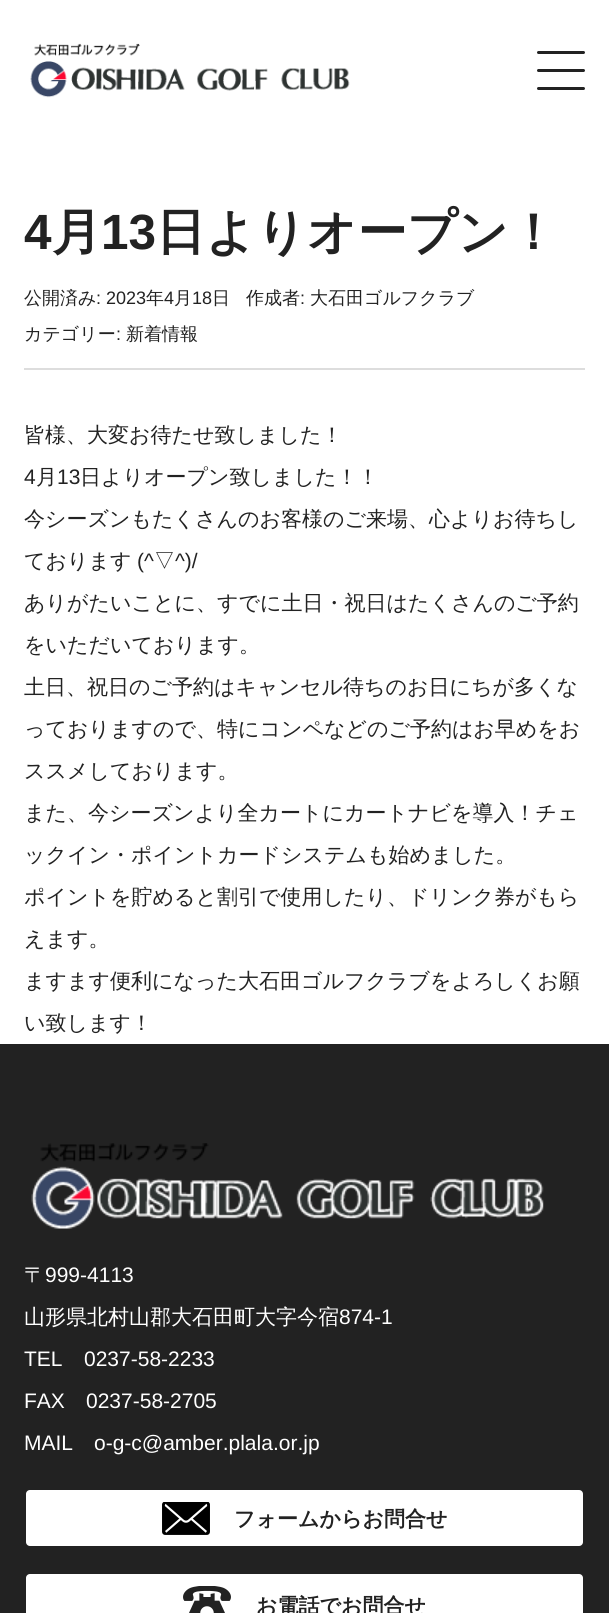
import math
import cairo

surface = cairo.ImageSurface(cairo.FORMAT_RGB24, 609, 1613)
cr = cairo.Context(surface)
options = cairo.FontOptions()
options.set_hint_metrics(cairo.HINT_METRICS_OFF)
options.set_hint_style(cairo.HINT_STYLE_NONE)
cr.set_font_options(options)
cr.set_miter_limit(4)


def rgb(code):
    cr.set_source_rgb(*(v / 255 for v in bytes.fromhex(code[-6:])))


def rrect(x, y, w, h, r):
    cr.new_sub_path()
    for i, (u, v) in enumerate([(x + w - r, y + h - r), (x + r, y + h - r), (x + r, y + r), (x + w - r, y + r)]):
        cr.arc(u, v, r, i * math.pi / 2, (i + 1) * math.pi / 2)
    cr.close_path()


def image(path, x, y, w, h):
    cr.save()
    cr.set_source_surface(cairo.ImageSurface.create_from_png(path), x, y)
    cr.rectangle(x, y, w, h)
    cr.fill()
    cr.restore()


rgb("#ffffff")
cr.paint()
image("img/1.png", 30, 43, 320, 55)
rgb("#222222")
rrect(537, 51, 48, 3, 1.5)
cr.fill()
rrect(537, 69, 48, 3, 1.5)
cr.fill()
rrect(537, 87, 48, 3, 1.5)
cr.fill()
rgb("#dddddd")
cr.rectangle(24, 368, 561, 2)
cr.fill()
rgb("#222222")
cr.rectangle(0, 1044, 609, 569)
cr.fill()
image("img/2.png", 31, 1143, 513, 86)
rgb("#ffffff")
rrect(25, 1489, 559, 58, 5)
cr.fill_preserve()
rgb("#222222")
cr.stroke()
image("img/3.png", 162, 1502, 48, 33)
rgb("#ffffff")
rrect(25, 1573, 559, 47, 5)
cr.fill_preserve()
rgb("#222222")
cr.stroke()
image("img/4.png", 183, 1586, 48, 27)
cr.select_font_face("Liberation Sans", cairo.FONT_SLANT_NORMAL, cairo.FONT_WEIGHT_BOLD)
cr.set_font_size(49.5)
cr.move_to(24, 249)
cr.show_text("4")
cr.select_font_face("WenQuanYi Zen Hei", cairo.FONT_SLANT_NORMAL, cairo.FONT_WEIGHT_BOLD)
cr.move_to(52, 249)
cr.show_text("月")
cr.select_font_face("Liberation Sans", cairo.FONT_SLANT_NORMAL, cairo.FONT_WEIGHT_BOLD)
cr.move_to(101, 249)
cr.show_text("13")
cr.select_font_face("WenQuanYi Zen Hei", cairo.FONT_SLANT_NORMAL, cairo.FONT_WEIGHT_BOLD)
cr.move_to(156, 249)
cr.show_text("日よりオープン！")
cr.select_font_face("WenQuanYi Zen Hei Medium")
cr.set_font_size(18)
cr.move_to(24, 304)
cr.show_text("公開済み")
cr.select_font_face("Liberation Sans")
cr.move_to(96, 304)
cr.show_text(": 2023")
cr.select_font_face("WenQuanYi Zen Hei Medium")
cr.move_to(146, 304)
cr.show_text("年")
cr.select_font_face("Liberation Sans")
cr.move_to(164, 304)
cr.show_text("4")
cr.select_font_face("WenQuanYi Zen Hei Medium")
cr.move_to(174, 304)
cr.show_text("月")
cr.select_font_face("Liberation Sans")
cr.move_to(192, 304)
cr.show_text("18")
cr.select_font_face("WenQuanYi Zen Hei Medium")
cr.move_to(212, 304)
cr.show_text("日")
cr.move_to(246, 304)
cr.show_text("作成者")
cr.select_font_face("Liberation Sans")
cr.move_to(300, 304)
cr.show_text(":")
cr.select_font_face("WenQuanYi Zen Hei Medium")
cr.move_to(310, 304)
cr.show_text("大石田ゴルフクラブ")
cr.move_to(24, 340)
cr.show_text("カテゴリー")
cr.select_font_face("Liberation Sans")
cr.move_to(116, 340)
cr.show_text(":")
cr.select_font_face("WenQuanYi Zen Hei Medium")
cr.move_to(126, 340)
cr.show_text("新着情報")
cr.set_font_size(21)
cr.move_to(24, 442)
cr.show_text("皆様、大変お待たせ致しました！")
cr.select_font_face("Liberation Sans")
cr.move_to(24, 484)
cr.show_text("4")
cr.select_font_face("WenQuanYi Zen Hei Medium")
cr.move_to(36, 484)
cr.show_text("月")
cr.select_font_face("Liberation Sans")
cr.move_to(57, 484)
cr.show_text("13")
cr.select_font_face("WenQuanYi Zen Hei Medium")
for x, y, s in [
    (80, 484, "日よりオープン致しました！！"),
    (24, 526, "今シーズンもたくさんのお客様のご来場、心よりお待ちし"),
    (24, 568, "ております"),
]:
    cr.move_to(x, y)
    cr.show_text(s)
cr.select_font_face("Liberation Sans")
cr.move_to(137, 568)
cr.show_text("(^")
cr.select_font_face("WenQuanYi Zen Hei Medium")
cr.move_to(154, 568)
cr.show_text("▽")
cr.select_font_face("Liberation Sans")
cr.move_to(175, 568)
cr.show_text("^)/")
cr.select_font_face("WenQuanYi Zen Hei Medium")
for x, y, s in [
    (24, 610, "ありがたいことに、すでに土日・祝日はたくさんのご予約"),
    (24, 652, "をいただいております。"),
    (24, 694, "土日、祝日のご予約はキャンセル待ちのお日にちが多くな"),
    (24, 736, "っておりますので、特にコンペなどのご予約はお早めをお"),
    (24, 778, "ススメしております。"),
    (24, 820, "また、今シーズンより全カートにカートナビを導入！チェ"),
    (24, 862, "ックイン・ポイントカードシステムも始めました。"),
    (24, 904, "ポイントを貯めると割引で使用したり、ドリンク券がもら"),
    (24, 946, "えます。"),
    (24, 988, "ますます便利になった大石田ゴルフクラブをよろしくお願"),
    (24, 1030, "い致します！"),
]:
    cr.move_to(x, y)
    cr.show_text(s)
rgb("#ffffff")
cr.move_to(24, 1282)
cr.show_text("〒")
cr.select_font_face("Liberation Sans")
cr.move_to(45, 1282)
cr.show_text("999-4113")
cr.select_font_face("WenQuanYi Zen Hei Medium")
cr.move_to(24, 1324)
cr.show_text("山形県北村山郡大石田町大字今宿")
cr.select_font_face("Liberation Sans")
for x, y, s in [
    (339, 1324, "874-1"),
    (24, 1366, "TEL"),
    (84, 1366, "0237-58-2233"),
    (24, 1408, "FAX"),
    (86, 1408, "0237-58-2705"),
    (24, 1450, "MAIL"),
    (94, 1450, "o-g-c@amber.plala.or.jp"),
]:
    cr.move_to(x, y)
    cr.show_text(s)
cr.select_font_face("WenQuanYi Zen Hei", cairo.FONT_SLANT_NORMAL, cairo.FONT_WEIGHT_BOLD)
rgb("#222222")
cr.move_to(234, 1526)
cr.show_text("フォームからお問合せ")
cr.move_to(256, 1613)
cr.show_text("お電話でお問合せ")
surface.write_to_png("page.png")
